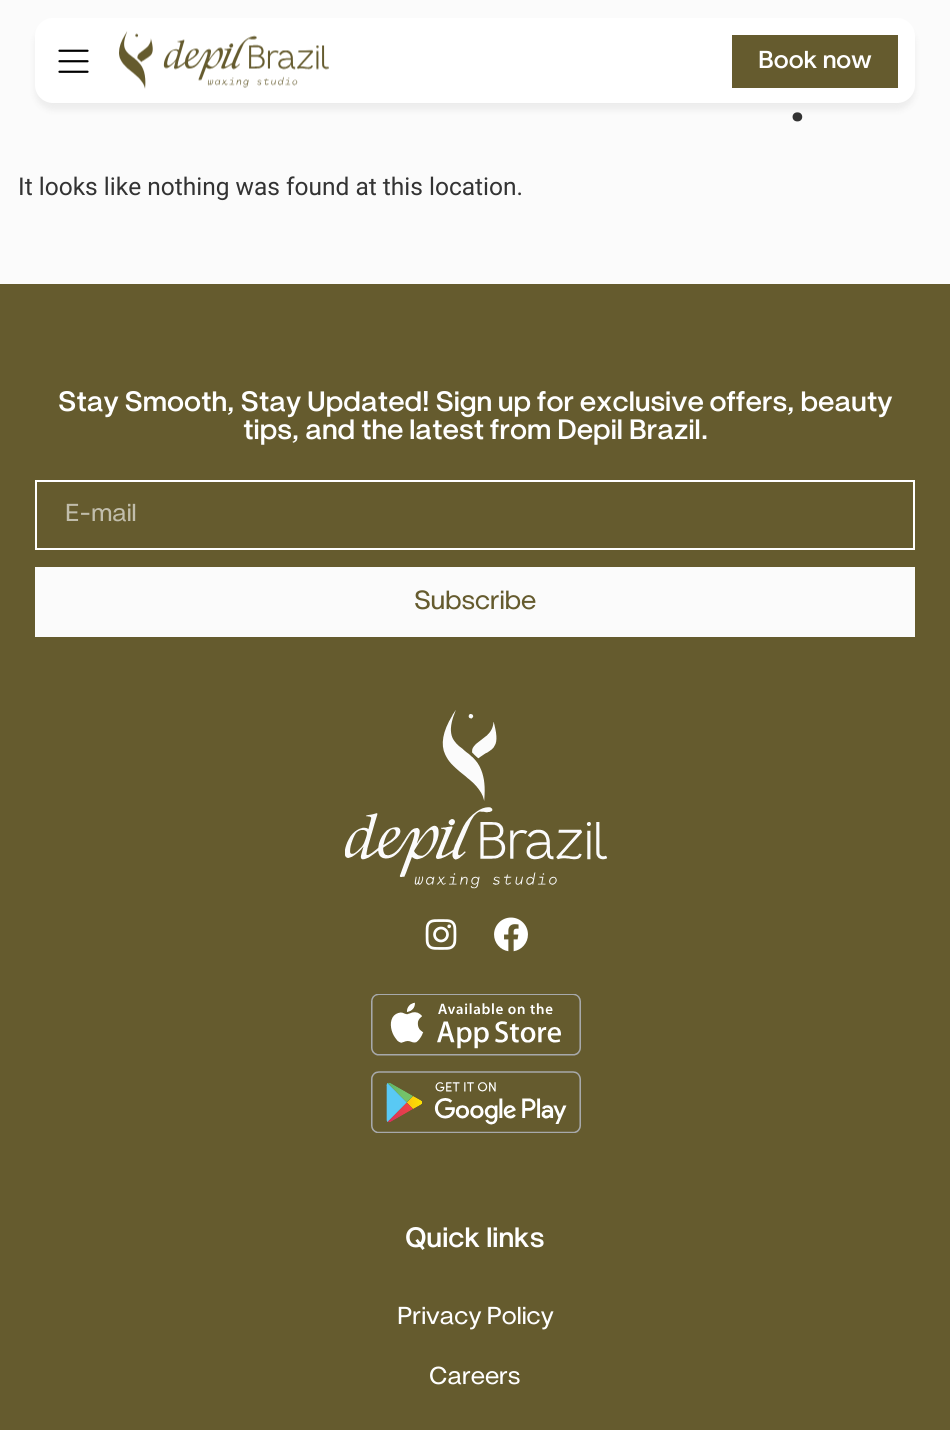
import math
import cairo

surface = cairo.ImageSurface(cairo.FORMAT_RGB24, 950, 1430)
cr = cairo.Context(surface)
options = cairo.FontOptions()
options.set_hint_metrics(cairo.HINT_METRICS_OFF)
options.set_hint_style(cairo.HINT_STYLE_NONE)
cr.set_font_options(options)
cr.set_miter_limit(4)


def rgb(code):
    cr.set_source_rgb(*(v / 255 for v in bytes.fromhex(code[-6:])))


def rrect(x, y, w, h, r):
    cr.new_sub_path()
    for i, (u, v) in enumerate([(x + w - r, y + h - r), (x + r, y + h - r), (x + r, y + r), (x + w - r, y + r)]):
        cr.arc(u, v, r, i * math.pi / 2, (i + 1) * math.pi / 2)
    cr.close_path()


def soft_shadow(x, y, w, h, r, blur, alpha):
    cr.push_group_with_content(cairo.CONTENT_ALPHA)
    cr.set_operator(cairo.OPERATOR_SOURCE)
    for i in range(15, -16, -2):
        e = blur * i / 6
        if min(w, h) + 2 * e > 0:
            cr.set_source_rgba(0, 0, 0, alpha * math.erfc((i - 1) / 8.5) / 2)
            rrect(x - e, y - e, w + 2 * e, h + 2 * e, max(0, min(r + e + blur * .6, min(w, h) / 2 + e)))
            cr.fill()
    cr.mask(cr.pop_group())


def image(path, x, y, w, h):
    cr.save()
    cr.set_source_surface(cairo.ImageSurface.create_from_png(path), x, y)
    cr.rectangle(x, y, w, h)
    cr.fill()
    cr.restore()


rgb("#fbfbfb")
cr.paint()
rgb("#000000")
soft_shadow(35, 25, 880, 85, 18, 3.5, 0.06)
rgb("#ffffff")
rrect(35, 18, 880, 85, 18)
cr.fill()
image("img/1.png", 58, 49, 31, 24)
image("img/2.png", 119, 31, 210, 58)
rgb("#655b2e")
cr.rectangle(732, 35, 166, 53)
cr.fill()
cr.rectangle(0, 284, 950, 1146)
cr.fill()
cr.rectangle(36, 481, 878, 68)
rgb("#ffffff")
cr.stroke()
rgb("#fbfbfb")
cr.rectangle(35, 567, 880, 70)
cr.fill()
image("img/3.png", 345, 710, 262, 179)
image("img/4.png", 425, 919, 32, 31)
image("img/5.png", 494, 917, 34, 35)
image("img/6.png", 371, 994, 210, 62)
image("img/7.png", 371, 1071, 210, 62)
cr.select_font_face("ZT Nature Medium")
cr.set_font_size(24.5)
rgb("#ffffff")
cr.move_to(758, 68)
cr.show_text("Book now")
cr.select_font_face("Roboto Medium")
cr.set_font_size(70)
rgb("#333333")
cr.move_to(788, 121)
cr.show_text(".")
cr.select_font_face("Roboto")
cr.set_font_size(24.5)
cr.move_to(18, 195)
cr.show_text("It looks like nothing was found at this location.")
cr.select_font_face("ZT Nature Medium")
cr.set_font_size(28)
rgb("#ffffff")
cr.move_to(58, 411)
cr.show_text("Stay Smooth, Stay Updated! Sign up for exclusive offers, beauty")
cr.move_to(243, 439)
cr.show_text("tips, and the latest from Depil Brazil.")
cr.select_font_face("ZT Nature")
cr.set_font_size(24.5)
rgb("#c1bdab")
cr.move_to(65, 521)
cr.show_text("E-mail")
cr.set_font_size(26.25)
rgb("#655b2e")
cr.move_to(414, 609)
cr.show_text("Subscribe")
cr.select_font_face("ZT Nature Medium")
cr.set_font_size(28)
rgb("#ffffff")
cr.move_to(405, 1247)
cr.show_text("Quick links")
cr.select_font_face("ZT Nature")
cr.set_font_size(24.5)
cr.move_to(397, 1324)
cr.show_text("Privacy Policy")
cr.move_to(429, 1384)
cr.show_text("Careers")
surface.write_to_png("page.png")
